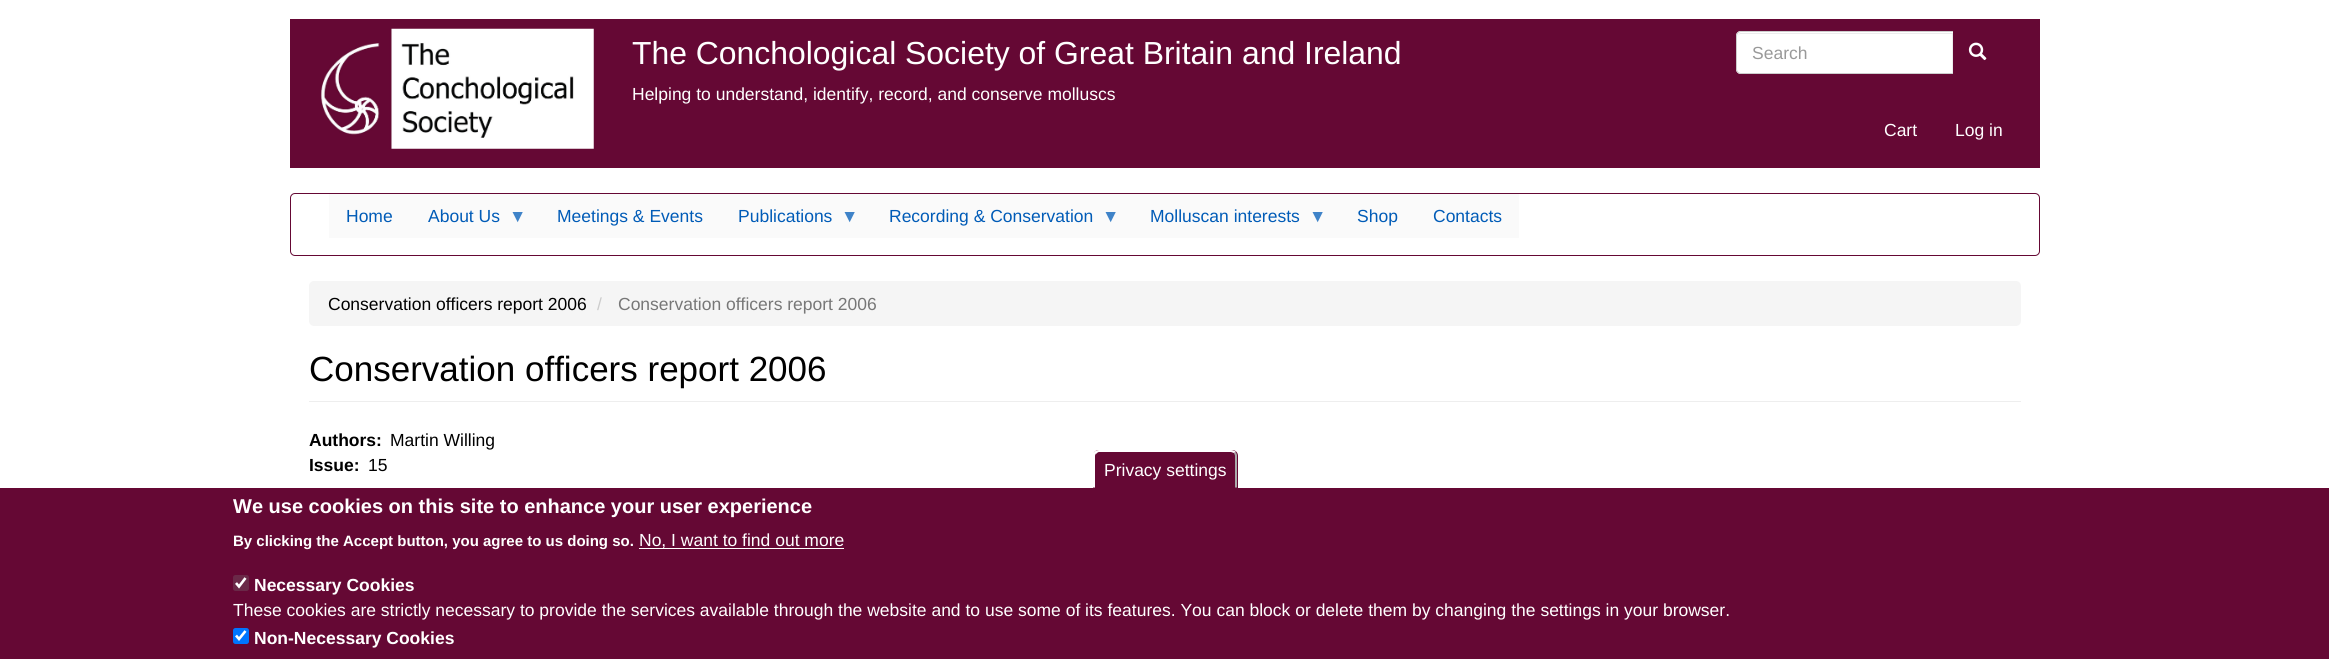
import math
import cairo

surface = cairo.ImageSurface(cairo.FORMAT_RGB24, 2329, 659)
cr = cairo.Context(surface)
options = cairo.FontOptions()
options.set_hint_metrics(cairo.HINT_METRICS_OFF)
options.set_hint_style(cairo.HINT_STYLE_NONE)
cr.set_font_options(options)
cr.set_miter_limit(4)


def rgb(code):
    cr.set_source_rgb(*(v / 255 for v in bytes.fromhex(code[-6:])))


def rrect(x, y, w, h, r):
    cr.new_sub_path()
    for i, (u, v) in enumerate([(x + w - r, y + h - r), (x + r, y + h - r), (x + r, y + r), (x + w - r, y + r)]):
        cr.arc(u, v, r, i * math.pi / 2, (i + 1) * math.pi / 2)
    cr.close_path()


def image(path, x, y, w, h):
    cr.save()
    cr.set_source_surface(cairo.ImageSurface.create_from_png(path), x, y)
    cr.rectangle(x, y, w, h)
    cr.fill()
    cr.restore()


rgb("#ffffff")
cr.paint()
rgb("#650834")
cr.rectangle(290, 19, 1750, 149)
cr.fill()
image("img/1.png", 320, 28, 274, 121)
rgb("#ffffff")
cr.new_path()
cr.move_to(1741, 31)
cr.line_to(1954, 31)
cr.line_to(1954, 74)
cr.line_to(1741, 74)
cr.curve_to(1738, 74, 1736, 72, 1736, 69)
cr.line_to(1736, 36)
cr.curve_to(1736, 33, 1738, 31, 1741, 31)
cr.close_path()
cr.fill()
rgb("#ececec")
cr.new_path()
cr.move_to(1741, 34)
cr.line_to(1952, 34)
cr.line_to(1952, 73)
cr.line_to(1953, 73)
cr.line_to(1953, 33)
cr.line_to(1740, 33)
cr.curve_to(1738, 34, 1738, 36, 1738, 38)
cr.curve_to(1738, 35, 1739, 34, 1741, 34)
cr.close_path()
cr.fill()
cr.new_path()
cr.move_to(1741, 31.5)
cr.line_to(1953.5, 31.5)
cr.line_to(1953.5, 73.5)
cr.line_to(1741, 73.5)
cr.curve_to(1738.5, 73.5, 1736.5, 71.5, 1736.5, 69)
cr.line_to(1736.5, 36)
cr.curve_to(1736.5, 33.5, 1738.5, 31.5, 1741, 31.5)
cr.close_path()
rgb("#cccccc")
cr.set_line_width(1)
cr.stroke()
rgb("#650834")
cr.new_path()
cr.move_to(1953, 31)
cr.line_to(1998, 31)
cr.curve_to(2001, 31, 2003, 33, 2003, 36)
cr.line_to(2003, 69)
cr.curve_to(2003, 72, 2001, 74, 1998, 74)
cr.line_to(1953, 74)
cr.close_path()
cr.fill()
image("img/2.png", 1968, 42, 19, 19)
rrect(290.5, 193.5, 1749, 62, 4.5)
cr.stroke()
rgb("#fafafa")
cr.rectangle(329, 194, 1190, 44)
cr.fill()
rgb("#f5f5f5")
rrect(309, 281, 1712, 45, 5)
cr.fill()
rgb("#eeeeee")
cr.rectangle(309, 401, 1712, 1)
cr.fill()
rgb("#650834")
cr.rectangle(0, 488, 2329, 171)
cr.fill()
cr.new_path()
cr.move_to(1099, 450)
cr.line_to(1232, 450)
cr.curve_to(1235.5, 450, 1238, 452.5, 1238, 456)
cr.line_to(1238, 488)
cr.line_to(1093, 488)
cr.line_to(1093, 456)
cr.curve_to(1093, 452.5, 1095.5, 450, 1099, 450)
cr.close_path()
cr.fill()
rgb("#ffffff")
cr.new_path()
cr.move_to(1099, 450)
cr.curve_to(1097, 450, 1095, 451, 1094, 452)
cr.line_to(1096, 454)
cr.curve_to(1097, 453, 1098, 452, 1099, 452)
cr.line_to(1231, 452)
cr.line_to(1234, 453)
cr.line_to(1236, 452)
cr.curve_to(1235, 451, 1233, 450, 1231, 450)
cr.close_path()
cr.fill()
rgb("#aaaaaa")
cr.new_path()
cr.move_to(1235, 487.5)
cr.line_to(1235, 456)
cr.curve_to(1235, 455, 1234.5, 454, 1234, 453.5)
cr.line_to(1235.5, 452)
cr.curve_to(1236.5, 453, 1237, 454.5, 1237, 456)
cr.line_to(1237, 487.5)
cr.close_path()
cr.fill()
rgb("#ffffff")
cr.new_path()
cr.move_to(1092.5, 487.5)
cr.line_to(1092.5, 454)
cr.line_to(1094, 451.5)
cr.line_to(1096, 453.5)
cr.curve_to(1095.5, 454, 1095, 455, 1095, 456)
cr.line_to(1095, 487.5)
cr.close_path()
cr.fill()
cr.rectangle(639, 548, 205, 1)
cr.fill()
rgb("#6a2948")
rrect(233, 575, 16, 16, 2.5)
cr.fill()
cr.new_path()
cr.move_to(236, 583)
cr.line_to(239, 586.5)
cr.line_to(245.5, 578)
rgb("#ffffff")
cr.set_line_width(2.6)
cr.stroke()
rgb("#0075ff")
rrect(233, 628, 16, 16, 2.5)
cr.fill()
cr.new_path()
cr.move_to(236, 635.5)
cr.line_to(239, 639)
cr.line_to(245.5, 631)
rgb("#ffffff")
cr.stroke()
cr.select_font_face("Liberation Sans")
cr.set_font_size(31.9)
cr.move_to(632, 64)
cr.show_text("The Conchological Society of Great Britain and Ireland")
cr.set_font_size(17.5)
cr.move_to(632, 100)
cr.show_text("Helping to understand, identify, record, and conserve molluscs")
rgb("#999999")
cr.move_to(1752, 59)
cr.show_text("Search")
rgb("#ffffff")
cr.move_to(1884, 136)
cr.show_text("Cart")
cr.move_to(1955, 136)
cr.show_text("Log in")
rgb("#005bb7")
cr.move_to(346, 222)
cr.show_text("Home")
cr.move_to(428, 222)
cr.show_text("About Us")
rgb("#3f83c8")
cr.move_to(509, 222)
cr.show_text("▼")
rgb("#005bb7")
cr.move_to(557, 222)
cr.show_text("Meetings & Events")
cr.move_to(738, 222)
cr.show_text("Publications")
rgb("#3f83c8")
cr.move_to(841, 222)
cr.show_text("▼")
rgb("#005bb7")
cr.move_to(889, 222)
cr.show_text("Recording & Conservation")
rgb("#3f83c8")
cr.move_to(1102, 222)
cr.show_text("▼")
rgb("#005bb7")
cr.move_to(1150, 222)
cr.show_text("Molluscan interests")
rgb("#3f83c8")
cr.move_to(1309, 222)
cr.show_text("▼")
rgb("#005bb7")
cr.move_to(1357, 222)
cr.show_text("Shop")
cr.move_to(1433, 222)
cr.show_text("Contacts")
rgb("#000000")
cr.move_to(328, 310)
cr.show_text("Conservation officers report 2006")
rgb("#cccccc")
cr.move_to(597, 310)
cr.show_text("/")
rgb("#777777")
cr.move_to(618, 310)
cr.show_text("Conservation officers report 2006")
cr.set_font_size(35)
rgb("#000000")
cr.move_to(309, 381)
cr.show_text("Conservation officers report 2006")
cr.select_font_face("Liberation Sans", cairo.FONT_SLANT_NORMAL, cairo.FONT_WEIGHT_BOLD)
cr.set_font_size(17.5)
cr.move_to(309, 446)
cr.show_text("Authors:")
cr.select_font_face("Liberation Sans")
cr.move_to(390, 446)
cr.show_text("Martin Willing")
cr.select_font_face("Liberation Sans", cairo.FONT_SLANT_NORMAL, cairo.FONT_WEIGHT_BOLD)
cr.move_to(309, 471)
cr.show_text("Issue:")
cr.select_font_face("Liberation Sans")
cr.move_to(368, 471)
cr.show_text("15")
rgb("#ffffff")
cr.move_to(1104, 476)
cr.show_text("Privacy settings")
cr.select_font_face("Liberation Sans", cairo.FONT_SLANT_NORMAL, cairo.FONT_WEIGHT_BOLD)
cr.set_font_size(20)
cr.move_to(233, 513)
cr.show_text("We use cookies on this site to enhance your user experience")
cr.set_font_size(15)
cr.move_to(233, 546)
cr.show_text("By clicking the Accept button, you agree to us doing so.")
cr.select_font_face("Liberation Sans")
cr.set_font_size(17.5)
cr.move_to(639, 546)
cr.show_text("No, I want to find out more")
cr.select_font_face("Liberation Sans", cairo.FONT_SLANT_NORMAL, cairo.FONT_WEIGHT_BOLD)
cr.move_to(254, 591)
cr.show_text("Necessary Cookies")
cr.select_font_face("Liberation Sans")
cr.move_to(233, 616)
cr.show_text("These cookies are strictly necessary to provide the services available through the website and to use some of its features. You can block or delete them by changing the settings in your browser.")
cr.select_font_face("Liberation Sans", cairo.FONT_SLANT_NORMAL, cairo.FONT_WEIGHT_BOLD)
cr.move_to(254, 644)
cr.show_text("Non-Necessary Cookies")
surface.write_to_png("page.png")
